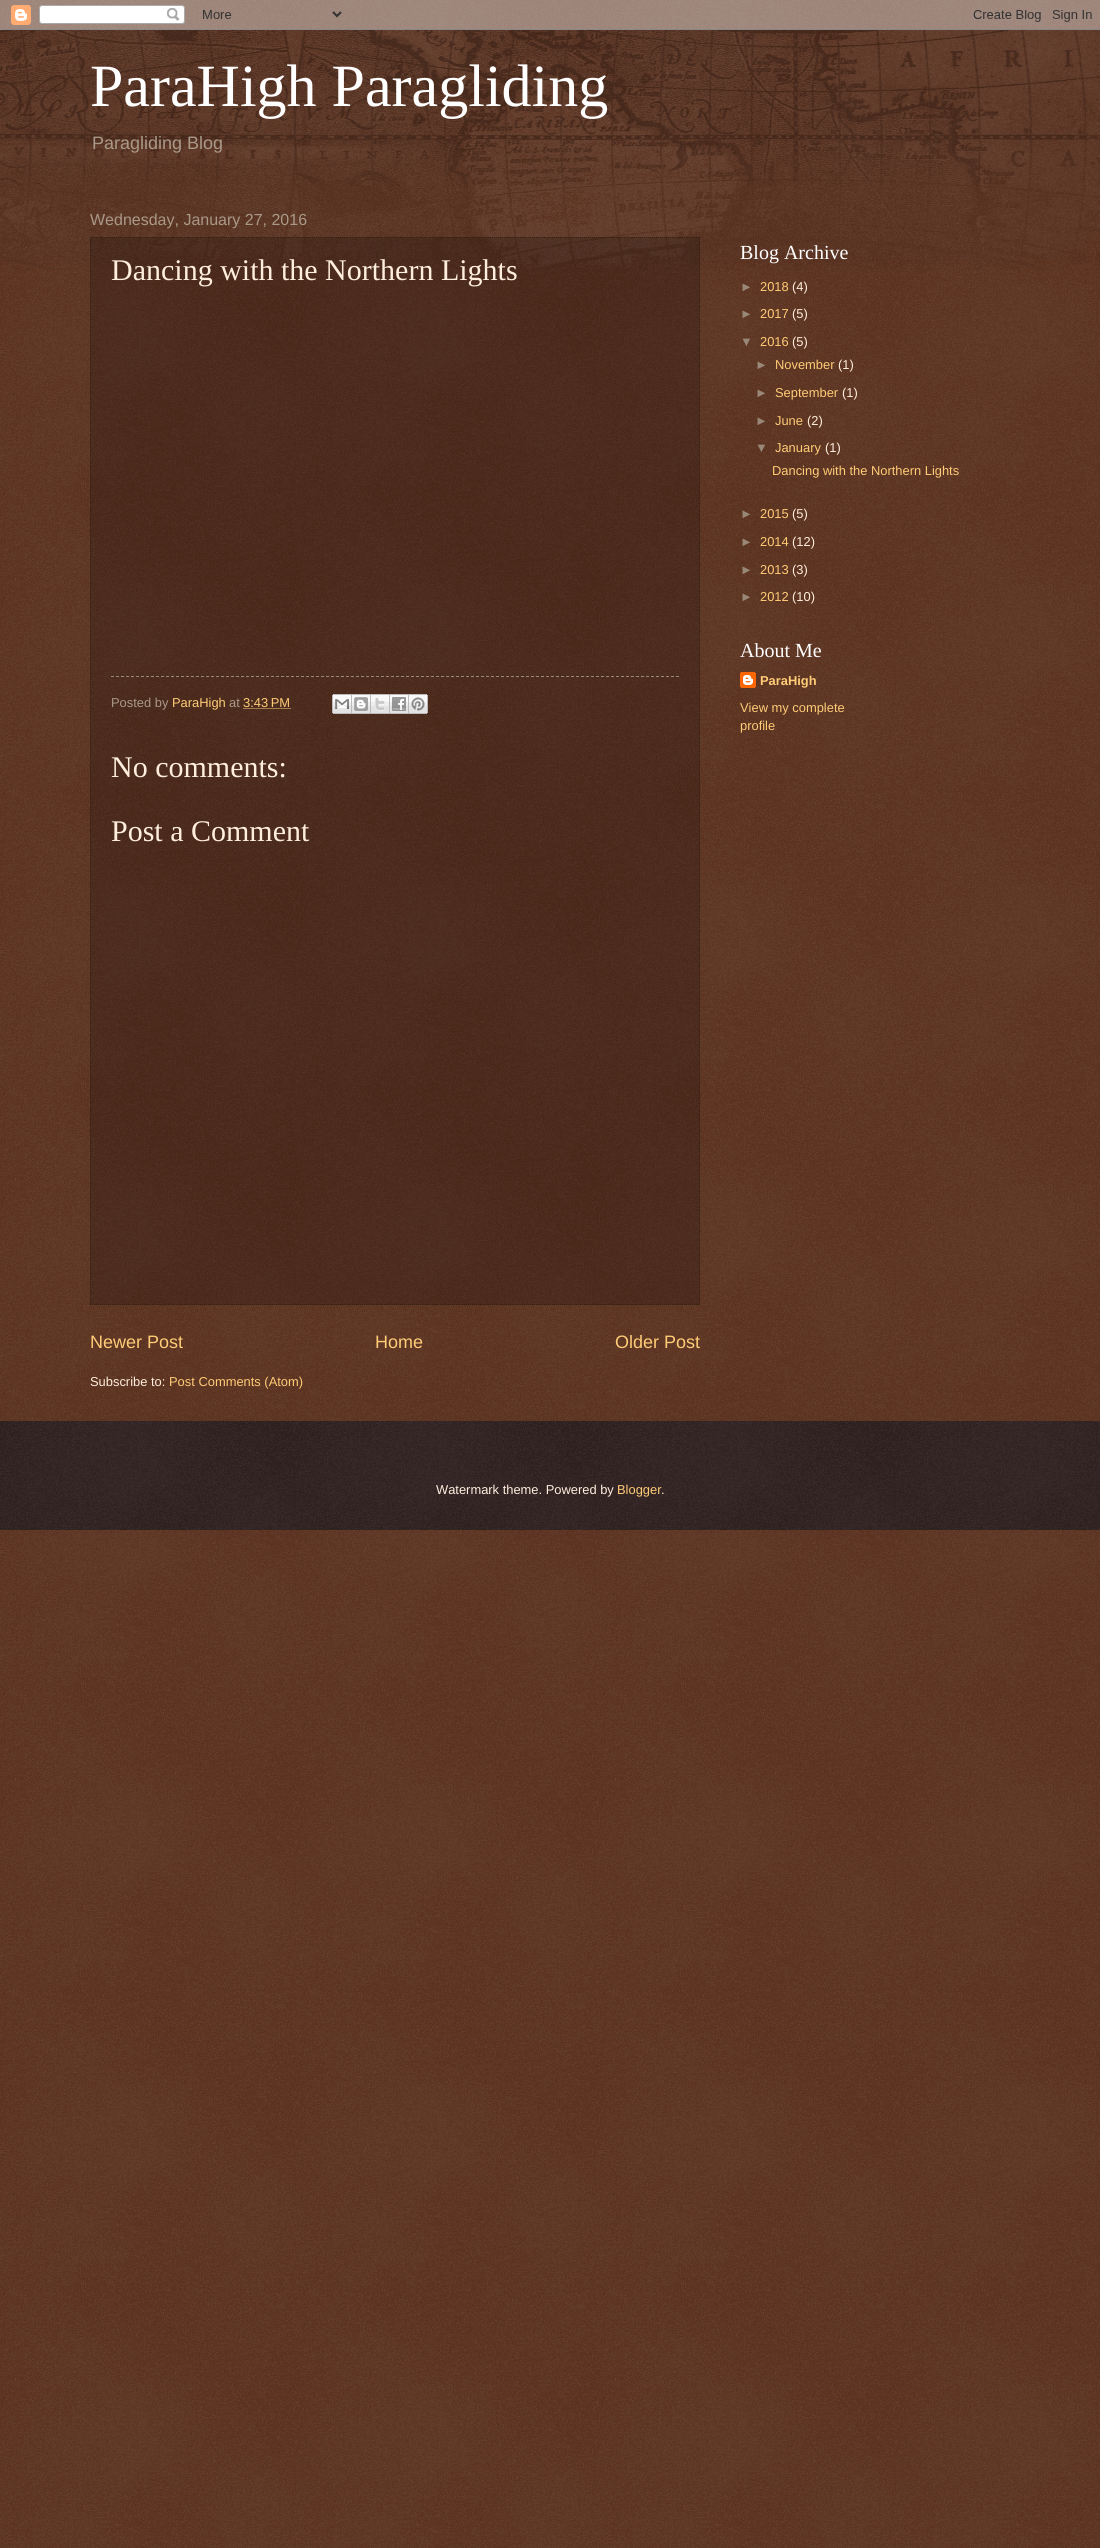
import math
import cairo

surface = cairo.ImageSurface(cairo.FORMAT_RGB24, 1100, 2548)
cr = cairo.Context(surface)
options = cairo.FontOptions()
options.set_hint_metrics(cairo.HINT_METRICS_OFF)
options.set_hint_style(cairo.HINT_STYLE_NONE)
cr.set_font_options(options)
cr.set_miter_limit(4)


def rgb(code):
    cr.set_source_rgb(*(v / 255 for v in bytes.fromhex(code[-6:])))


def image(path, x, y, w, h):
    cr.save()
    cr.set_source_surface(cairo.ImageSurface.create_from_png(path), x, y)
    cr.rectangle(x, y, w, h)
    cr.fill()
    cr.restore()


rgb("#441500")
cr.paint()
image("img/1.png", 0, 0, 1100, 2548)
image("img/2.png", 0, 0, 1100, 30)
image("img/3.png", 0, 30, 1100, 240)
cr.set_source_rgba(0, 0, 0, 0.2)
cr.rectangle(90, 237, 610, 1068)
cr.fill()
cr.new_path()
cr.move_to(90, 237.5)
cr.line_to(700, 237.5)
rgb("#332211")
cr.set_line_width(1)
cr.set_dash([1, 1])
cr.stroke()
cr.new_path()
cr.move_to(699.5, 237)
cr.line_to(699.5, 1305)
cr.stroke()
cr.new_path()
cr.move_to(90, 1304.5)
cr.line_to(700, 1304.5)
cr.stroke()
cr.new_path()
cr.move_to(90.5, 237)
cr.line_to(90.5, 1305)
cr.stroke()
cr.new_path()
cr.move_to(111, 676.5)
cr.line_to(679, 676.5)
rgb("#998877")
cr.set_dash([3, 2])
cr.stroke()
cr.new_path()
cr.move_to(243.5, 708.5)
cr.line_to(290.5, 708.5)
rgb("#ffcc77")
cr.set_dash([1, 1])
cr.stroke()
image("img/4.png", 332, 694, 20, 20)
image("img/5.png", 352, 694, 19, 20)
image("img/6.png", 371, 694, 19, 20)
image("img/7.png", 390, 694, 19, 20)
image("img/8.png", 409, 694, 19, 20)
image("img/9.png", 740, 672, 16, 16)
rgb("#110000")
cr.rectangle(0, 1421, 1100, 109)
cr.fill()
image("img/10.png", 0, 1421, 1100, 109)
cr.select_font_face("Liberation Serif")
cr.set_font_size(60)
rgb("#ffffff")
cr.move_to(90, 106)
cr.show_text("ParaHigh Paragliding")
cr.select_font_face("Liberation Sans")
cr.set_font_size(18)
rgb("#aa9988")
cr.move_to(92, 149)
cr.show_text("Paragliding Blog")
cr.set_font_size(16)
cr.move_to(90, 225)
cr.show_text("Wednesday, January 27, 2016")
cr.select_font_face("Liberation Serif")
cr.set_font_size(30)
rgb("#ffeedd")
cr.move_to(111, 280)
cr.show_text("Dancing with the Northern Lights")
cr.select_font_face("Liberation Sans")
cr.set_font_size(12.9)
rgb("#aa9988")
cr.move_to(111, 707)
cr.show_text("Posted by")
rgb("#ffcc77")
cr.move_to(172, 707)
cr.show_text("ParaHigh")
rgb("#aa9988")
cr.move_to(229, 707)
cr.show_text("at")
rgb("#ffcc77")
cr.move_to(243, 707)
cr.show_text("3:43 PM")
cr.select_font_face("Liberation Serif")
cr.set_font_size(30)
rgb("#ffeedd")
cr.move_to(111, 777)
cr.show_text("No comments:")
cr.move_to(111, 841)
cr.show_text("Post a Comment")
cr.select_font_face("Liberation Sans")
cr.set_font_size(18)
rgb("#ffcc77")
for x, y, s in [
    (90, 1348, "Newer Post"),
    (375, 1348, "Home"),
    (615, 1348, "Older Post"),
]:
    cr.move_to(x, y)
    cr.show_text(s)
cr.set_font_size(12.9)
rgb("#ffeedd")
cr.move_to(90, 1386)
cr.show_text("Subscribe to:")
rgb("#ffcc77")
cr.move_to(169, 1386)
cr.show_text("Post Comments (Atom)")
cr.select_font_face("Liberation Serif")
cr.set_font_size(20)
rgb("#ffffff")
cr.move_to(740, 259)
cr.show_text("Blog Archive")
cr.select_font_face("Liberation Sans")
cr.set_font_size(12.9)
rgb("#998877")
cr.move_to(740, 291)
cr.show_text("►")
rgb("#ffcc77")
cr.move_to(760, 291)
cr.show_text("2018")
rgb("#ffeedd")
cr.move_to(792, 291)
cr.show_text("(4)")
rgb("#998877")
cr.move_to(740, 318)
cr.show_text("►")
rgb("#ffcc77")
cr.move_to(760, 318)
cr.show_text("2017")
rgb("#ffeedd")
cr.move_to(792, 318)
cr.show_text("(5)")
rgb("#998877")
cr.move_to(740, 346)
cr.show_text("▼")
rgb("#ffcc77")
cr.move_to(760, 346)
cr.show_text("2016")
rgb("#ffeedd")
cr.move_to(792, 346)
cr.show_text("(5)")
rgb("#998877")
cr.move_to(755, 369)
cr.show_text("►")
rgb("#ffcc77")
cr.move_to(775, 369)
cr.show_text("November")
rgb("#ffeedd")
cr.move_to(838, 369)
cr.show_text("(1)")
rgb("#998877")
cr.move_to(755, 397)
cr.show_text("►")
rgb("#ffcc77")
cr.move_to(775, 397)
cr.show_text("September")
rgb("#ffeedd")
cr.move_to(842, 397)
cr.show_text("(1)")
rgb("#998877")
cr.move_to(755, 425)
cr.show_text("►")
rgb("#ffcc77")
cr.move_to(775, 425)
cr.show_text("June")
rgb("#ffeedd")
cr.move_to(807, 425)
cr.show_text("(2)")
rgb("#998877")
cr.move_to(755, 452)
cr.show_text("▼")
rgb("#ffcc77")
cr.move_to(775, 452)
cr.show_text("January")
rgb("#ffeedd")
cr.move_to(825, 452)
cr.show_text("(1)")
rgb("#ffcc77")
cr.move_to(772, 475)
cr.show_text("Dancing with the Northern Lights")
rgb("#998877")
cr.move_to(740, 518)
cr.show_text("►")
rgb("#ffcc77")
cr.move_to(760, 518)
cr.show_text("2015")
rgb("#ffeedd")
cr.move_to(792, 518)
cr.show_text("(5)")
rgb("#998877")
cr.move_to(740, 546)
cr.show_text("►")
rgb("#ffcc77")
cr.move_to(760, 546)
cr.show_text("2014")
rgb("#ffeedd")
cr.move_to(792, 546)
cr.show_text("(12)")
rgb("#998877")
cr.move_to(740, 574)
cr.show_text("►")
rgb("#ffcc77")
cr.move_to(760, 574)
cr.show_text("2013")
rgb("#ffeedd")
cr.move_to(792, 574)
cr.show_text("(3)")
rgb("#998877")
cr.move_to(740, 601)
cr.show_text("►")
rgb("#ffcc77")
cr.move_to(760, 601)
cr.show_text("2012")
rgb("#ffeedd")
cr.move_to(792, 601)
cr.show_text("(10)")
cr.select_font_face("Liberation Serif")
cr.set_font_size(20)
rgb("#ffffff")
cr.move_to(740, 657)
cr.show_text("About Me")
cr.select_font_face("Liberation Sans", cairo.FONT_SLANT_NORMAL, cairo.FONT_WEIGHT_BOLD)
cr.set_font_size(12.9)
rgb("#ffcc77")
cr.move_to(760, 685)
cr.show_text("ParaHigh")
cr.select_font_face("Liberation Sans")
cr.move_to(740, 712)
cr.show_text("View my complete")
cr.move_to(740, 730)
cr.show_text("profile")
rgb("#ffeedd")
cr.move_to(436, 1494)
cr.show_text("Watermark theme. Powered by")
rgb("#ffcc77")
cr.move_to(617, 1494)
cr.show_text("Blogger")
rgb("#ffeedd")
cr.move_to(661, 1494)
cr.show_text(".")
surface.write_to_png("page.png")
